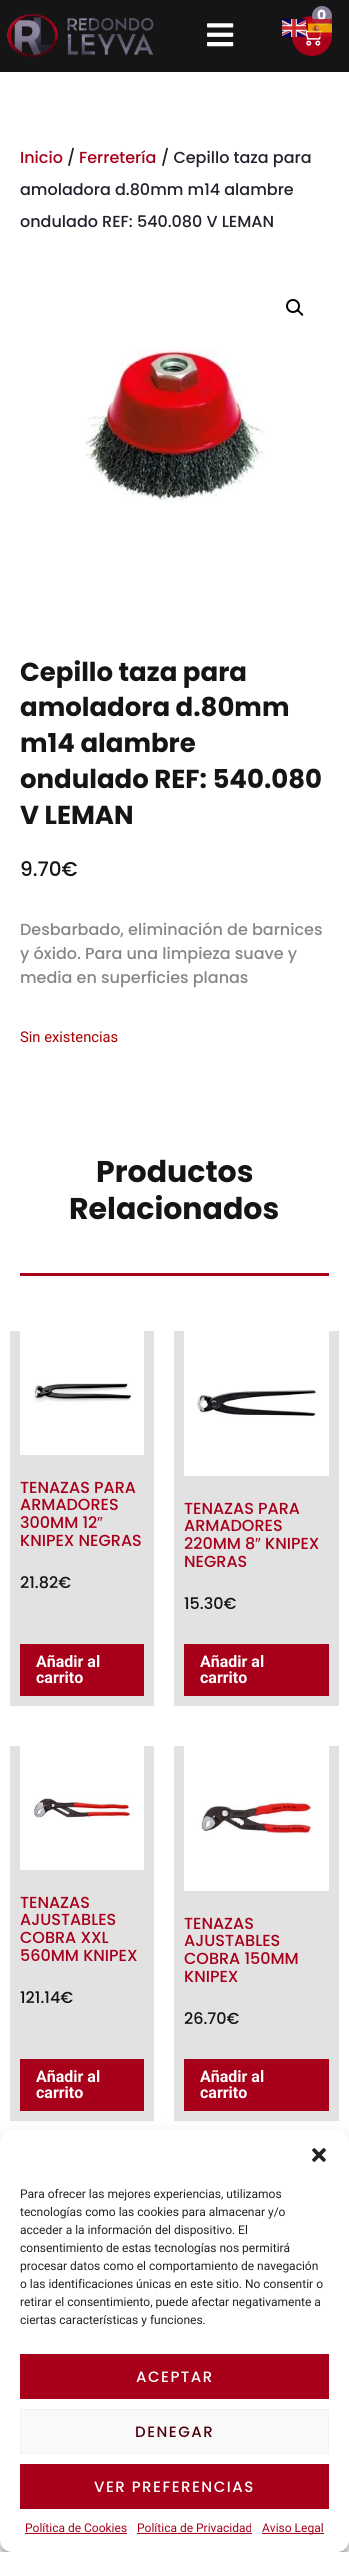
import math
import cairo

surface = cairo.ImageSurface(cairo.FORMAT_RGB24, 349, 2552)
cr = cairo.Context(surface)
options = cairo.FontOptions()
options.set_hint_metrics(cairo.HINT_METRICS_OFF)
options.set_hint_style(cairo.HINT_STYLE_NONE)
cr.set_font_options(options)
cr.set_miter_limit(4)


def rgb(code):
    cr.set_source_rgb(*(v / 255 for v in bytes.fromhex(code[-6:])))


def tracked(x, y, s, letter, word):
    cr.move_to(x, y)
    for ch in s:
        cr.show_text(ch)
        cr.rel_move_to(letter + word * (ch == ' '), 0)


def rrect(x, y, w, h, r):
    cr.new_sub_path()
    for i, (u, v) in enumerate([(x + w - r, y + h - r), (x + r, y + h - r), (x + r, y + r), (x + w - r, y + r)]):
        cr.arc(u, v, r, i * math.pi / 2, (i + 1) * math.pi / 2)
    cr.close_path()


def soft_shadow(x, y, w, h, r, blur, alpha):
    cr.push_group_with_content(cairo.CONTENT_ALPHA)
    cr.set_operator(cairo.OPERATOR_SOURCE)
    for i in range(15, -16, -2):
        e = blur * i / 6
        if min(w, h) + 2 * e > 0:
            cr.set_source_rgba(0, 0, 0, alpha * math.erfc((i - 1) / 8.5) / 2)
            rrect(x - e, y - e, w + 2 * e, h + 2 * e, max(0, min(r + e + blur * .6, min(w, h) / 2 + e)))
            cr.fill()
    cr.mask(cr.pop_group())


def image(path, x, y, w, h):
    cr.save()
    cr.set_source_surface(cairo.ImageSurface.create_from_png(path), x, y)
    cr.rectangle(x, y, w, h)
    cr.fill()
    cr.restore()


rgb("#ffffff")
cr.paint()
rgb("#151515")
cr.rectangle(0, 0, 349, 72)
cr.fill()
image("img/1.png", 7, 14, 147, 43)
image("img/2.png", 207, 23, 27, 24)
rgb("#a8001a")
cr.arc(312, 36, 20, 0, 2 * math.pi)
cr.fill()
rgb("#887f98")
cr.arc(322, 16, 10, 0, 2 * math.pi)
cr.fill()
image("img/3.png", 302, 27, 20, 19)
image("img/4.png", 282, 19, 24, 18)
cr.arc(293, 306, 6, 0, 2 * math.pi)
rgb("#000000")
cr.stroke()
cr.new_path()
cr.move_to(297, 309.5)
cr.curve_to(298.5, 308.5, 300, 311, 300.5, 312)
cr.curve_to(301.5, 312.5, 304, 314, 303, 315.5)
cr.curve_to(301.5, 316.5, 300, 314, 299.5, 313)
cr.curve_to(298.5, 312.5, 296, 311, 297, 309.5)
cr.close_path()
cr.fill()
image("img/6.png", 85, 348, 180, 155)
rgb("#a8001a")
cr.rectangle(20, 1273, 309, 3)
cr.fill()
rgb("#e2e2e2")
cr.rectangle(10, 1331, 144, 375)
cr.fill()
image("img/7.png", 20, 1331, 124, 124)
rgb("#a8001a")
cr.rectangle(20, 1644, 124, 52)
cr.fill()
rgb("#e2e2e2")
cr.rectangle(174, 1331, 165, 375)
cr.fill()
image("img/8.png", 184, 1331, 145, 145)
rgb("#a8001a")
cr.rectangle(184, 1644, 145, 52)
cr.fill()
rgb("#e2e2e2")
cr.rectangle(10, 1746, 144, 375)
cr.fill()
image("img/9.png", 20, 1746, 124, 124)
rgb("#a8001a")
cr.rectangle(20, 2059, 124, 52)
cr.fill()
rgb("#e2e2e2")
cr.rectangle(174, 1746, 165, 375)
cr.fill()
image("img/10.png", 184, 1746, 145, 145)
rgb("#a8001a")
cr.rectangle(184, 2059, 145, 52)
cr.fill()
rgb("#000000")
soft_shadow(0, 2136, 349, 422, 12, 3, 0.23)
soft_shadow(0, 2140, 349, 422, 12, 10, 0.19)
rgb("#ffffff")
rrect(0, 2130, 349, 422, 12)
cr.fill()
image("img/11.png", 312, 2148, 14, 14)
rgb("#a8001a")
cr.rectangle(20, 2354, 309, 45)
cr.fill()
rgb("#f9f9f9")
cr.rectangle(20.5, 2409.5, 308, 44)
cr.fill_preserve()
rgb("#f2f2f2")
cr.set_line_width(1)
cr.stroke()
for x, y, w, h, color in [
    (20, 2464, 309, 45, "#a8001a"),
    (25, 2533, 102, 1, "#a8001a"),
    (137, 2533, 115, 1, "#a8001a"),
    (262, 2533, 62, 1, "#a8001a"),
]:
    rgb(color)
    cr.rectangle(x, y, w, h)
    cr.fill()
cr.select_font_face("Poppins", cairo.FONT_SLANT_NORMAL, cairo.FONT_WEIGHT_BOLD)
cr.set_font_size(14)
rgb("#ffffff")
cr.move_to(317, 20)
cr.show_text("0")
image("img/5.png", 308, 19, 24, 18)
cr.select_font_face("Poppins Medium")
cr.set_font_size(16)
rgb("#a8001a")
cr.move_to(20, 163)
cr.show_text("Inicio")
rgb("#23202c")
cr.move_to(67, 163)
cr.show_text("/")
rgb("#a8001a")
cr.move_to(79, 163)
cr.show_text("Ferretería")
rgb("#23202c")
for x, y, s in [
    (161, 163, "/ Cepillo taza para"),
    (20, 195, "amoladora d.80mm m14 alambre"),
    (20, 227, "ondulado REF: 540.080 V LEMAN"),
]:
    cr.move_to(x, y)
    cr.show_text(s)
cr.select_font_face("Poppins", cairo.FONT_SLANT_NORMAL, cairo.FONT_WEIGHT_BOLD)
cr.set_font_size(26)
rgb("#151515")
for x, y, s in [
    (20, 681, "Cepillo taza para"),
    (20, 716, "amoladora d.80mm"),
    (20, 752, "m14 alambre"),
    (20, 788, "ondulado REF: 540.080"),
    (20, 824, "V LEMAN"),
]:
    cr.move_to(x, y)
    cr.show_text(s)
cr.select_font_face("Poppins Medium")
cr.set_font_size(20)
cr.move_to(20, 876)
cr.show_text("9.70€")
cr.set_font_size(16)
rgb("#868686")
for x, y, s in [
    (20, 935, "Desbarbado, eliminación de barnices"),
    (20, 959, "y óxido. Para una limpieza suave y"),
    (20, 983, "media en superficies planas"),
]:
    cr.move_to(x, y)
    cr.show_text(s)
cr.select_font_face("Roboto")
cr.set_font_size(14.75)
rgb("#aa0000")
cr.move_to(20, 1042)
cr.show_text("Sin existencias")
cr.select_font_face("Poppins", cairo.FONT_SLANT_NORMAL, cairo.FONT_WEIGHT_BOLD)
cr.set_font_size(30)
rgb("#151515")
cr.move_to(96, 1182)
cr.show_text("Productos")
cr.move_to(69, 1219)
cr.show_text("Relacionados")
cr.select_font_face("Poppins Medium")
cr.set_font_size(16)
rgb("#a8001a")
for x, y, s in [
    (20, 1493, "TENAZAS PARA"),
    (20, 1510, "ARMADORES"),
    (20, 1528, "300MM 12"),
]:
    cr.move_to(x, y)
    cr.show_text(s)
cr.select_font_face("Liberation Sans")
cr.move_to(97, 1528)
cr.show_text("″")
cr.select_font_face("Poppins Medium")
cr.move_to(20, 1546)
cr.show_text("KNIPEX NEGRAS")
rgb("#151515")
cr.move_to(20, 1588)
cr.show_text("21.82€")
cr.select_font_face("Roboto", cairo.FONT_SLANT_NORMAL, cairo.FONT_WEIGHT_BOLD)
rgb("#ffffff")
cr.move_to(36, 1667)
cr.show_text("Añadir al")
cr.move_to(36, 1683)
cr.show_text("carrito")
cr.select_font_face("Poppins Medium")
rgb("#a8001a")
for x, y, s in [
    (184, 1514, "TENAZAS PARA"),
    (184, 1531, "ARMADORES"),
    (184, 1549, "220MM 8"),
]:
    cr.move_to(x, y)
    cr.show_text(s)
cr.select_font_face("Liberation Sans")
cr.move_to(255, 1549)
cr.show_text("″")
cr.select_font_face("Poppins Medium")
cr.move_to(265, 1549)
cr.show_text("KNIPEX")
cr.move_to(184, 1567)
cr.show_text("NEGRAS")
rgb("#151515")
cr.move_to(184, 1609)
cr.show_text("15.30€")
cr.select_font_face("Roboto", cairo.FONT_SLANT_NORMAL, cairo.FONT_WEIGHT_BOLD)
rgb("#ffffff")
cr.move_to(200, 1667)
cr.show_text("Añadir al")
cr.move_to(200, 1683)
cr.show_text("carrito")
cr.select_font_face("Poppins Medium")
rgb("#a8001a")
for x, y, s in [
    (20, 1908, "TENAZAS"),
    (20, 1925, "AJUSTABLES"),
    (20, 1943, "COBRA XXL"),
    (20, 1961, "560MM KNIPEX"),
]:
    cr.move_to(x, y)
    cr.show_text(s)
rgb("#151515")
cr.move_to(20, 2003)
cr.show_text("121.14€")
cr.select_font_face("Roboto", cairo.FONT_SLANT_NORMAL, cairo.FONT_WEIGHT_BOLD)
rgb("#ffffff")
cr.move_to(36, 2082)
cr.show_text("Añadir al")
cr.move_to(36, 2098)
cr.show_text("carrito")
cr.select_font_face("Poppins Medium")
rgb("#a8001a")
for x, y, s in [
    (184, 1929, "TENAZAS"),
    (184, 1946, "AJUSTABLES"),
    (184, 1964, "COBRA 150MM"),
    (184, 1982, "KNIPEX"),
]:
    cr.move_to(x, y)
    cr.show_text(s)
rgb("#151515")
cr.move_to(184, 2024)
cr.show_text("26.70€")
cr.select_font_face("Roboto", cairo.FONT_SLANT_NORMAL, cairo.FONT_WEIGHT_BOLD)
rgb("#ffffff")
cr.move_to(200, 2082)
cr.show_text("Añadir al")
cr.move_to(200, 2098)
cr.show_text("carrito")
cr.select_font_face("Roboto")
cr.set_font_size(12)
rgb("#222222")
for x, y, s in [
    (20, 2198, "Para ofrecer las mejores experiencias, utilizamos"),
    (20, 2216, "tecnologías como las cookies para almacenar y/o"),
    (20, 2234, "acceder a la información del dispositivo. El"),
    (20, 2252, "consentimiento de estas tecnologías nos permitirá"),
    (20, 2270, "procesar datos como el comportamiento de navegación"),
    (20, 2288, "o las identificaciones únicas en este sitio. No consentir o"),
    (20, 2306, "retirar el consentimiento, puede afectar negativamente a"),
    (20, 2324, "ciertas características y funciones."),
]:
    cr.move_to(x, y)
    cr.show_text(s)
cr.select_font_face("Poppins Medium")
cr.set_font_size(15)
rgb("#ffffff")
tracked(136, 2382, "ACEPTAR", 1.5, 0)
rgb("#4f000e")
tracked(135, 2437, "DENEGAR", 1.5, 0)
rgb("#ffffff")
tracked(94, 2492, "VER PREFERENCIAS", 1.5, 0)
cr.select_font_face("Roboto")
cr.set_font_size(12)
rgb("#a8001a")
for x, y, s in [
    (25, 2532, "Política de Cookies"),
    (137, 2532, "Política de Privacidad"),
    (262, 2532, "Aviso Legal"),
]:
    cr.move_to(x, y)
    cr.show_text(s)
surface.write_to_png("page.png")
